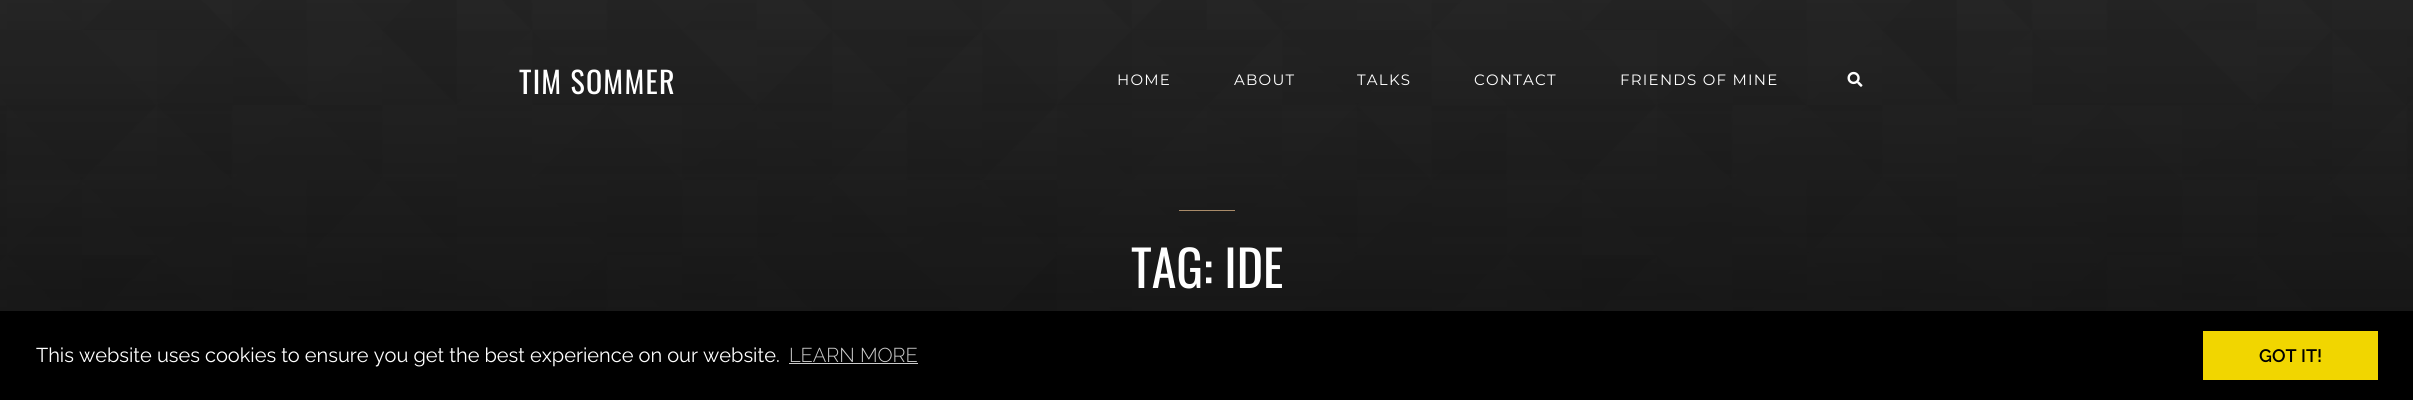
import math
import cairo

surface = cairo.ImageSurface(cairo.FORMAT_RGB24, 2413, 400)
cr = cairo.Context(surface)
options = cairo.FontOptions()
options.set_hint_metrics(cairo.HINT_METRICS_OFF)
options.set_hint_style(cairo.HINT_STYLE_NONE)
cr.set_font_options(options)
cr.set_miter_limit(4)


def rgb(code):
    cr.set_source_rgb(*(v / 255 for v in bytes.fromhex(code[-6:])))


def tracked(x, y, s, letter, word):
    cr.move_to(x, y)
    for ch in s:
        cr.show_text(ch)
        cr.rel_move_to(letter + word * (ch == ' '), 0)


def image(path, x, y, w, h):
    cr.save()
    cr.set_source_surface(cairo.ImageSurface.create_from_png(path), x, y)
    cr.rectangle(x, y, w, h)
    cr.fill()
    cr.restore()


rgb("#ffffff")
cr.paint()
image("img/2.png", 0, 0, 2413, 311)
image("img/1.png", 1847, 71, 16, 16)
for x, y, w, h, color in [
    (1179, 210, 56, 1, "#a98b69"),
    (0, 311, 2413, 89, "#000000"),
    (789, 363, 129, 1, "#cccccc"),
    (2203, 331, 175, 49, "#f1d600"),
]:
    rgb(color)
    cr.rectangle(x, y, w, h)
    cr.fill()
cr.select_font_face("Oswald")
cr.set_font_size(30)
rgb("#ffffff")
tracked(519, 94, "TIM SOMMER", 1.25, 0)
cr.select_font_face("Montserrat")
cr.set_font_size(15)
for x, y, s in [
    (1117, 85, "HOME"),
    (1234, 85, "ABOUT"),
    (1357, 85, "TALKS"),
    (1474, 85, "CONTACT"),
    (1620, 85, "FRIENDS OF MINE"),
]:
    tracked(x, y, s, 1.25, 0)
cr.select_font_face("Oswald")
cr.set_font_size(50)
cr.move_to(1131, 288)
cr.show_text("TAG: IDE")
cr.select_font_face("Raleway")
cr.set_font_size(20)
cr.move_to(36, 362)
cr.show_text("This website uses cookies to ensure you get the best experience on our website.")
cr.select_font_face("Raleway Light")
rgb("#cccccc")
cr.move_to(789, 362)
cr.show_text("LEARN MORE")
cr.select_font_face("Raleway SemiBold")
cr.set_font_size(18)
rgb("#000000")
cr.move_to(2259, 362)
cr.show_text("GOT IT!")
surface.write_to_png("page.png")
